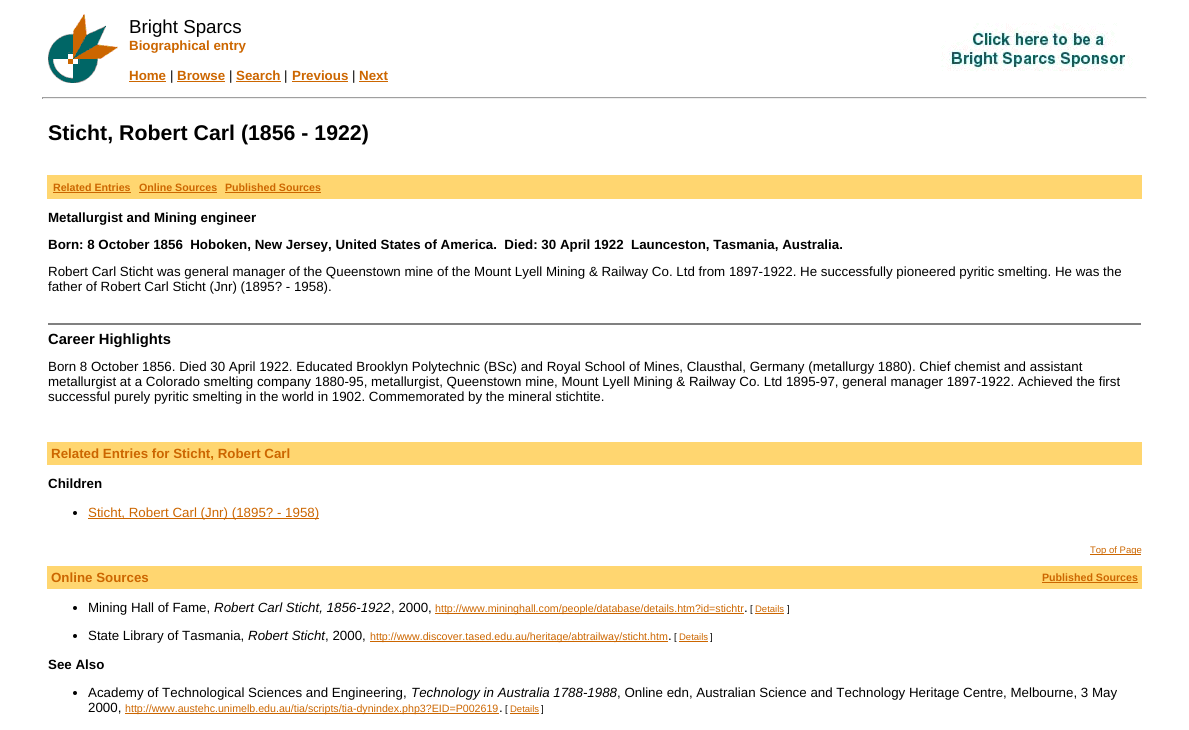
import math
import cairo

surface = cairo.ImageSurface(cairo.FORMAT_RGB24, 1189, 730)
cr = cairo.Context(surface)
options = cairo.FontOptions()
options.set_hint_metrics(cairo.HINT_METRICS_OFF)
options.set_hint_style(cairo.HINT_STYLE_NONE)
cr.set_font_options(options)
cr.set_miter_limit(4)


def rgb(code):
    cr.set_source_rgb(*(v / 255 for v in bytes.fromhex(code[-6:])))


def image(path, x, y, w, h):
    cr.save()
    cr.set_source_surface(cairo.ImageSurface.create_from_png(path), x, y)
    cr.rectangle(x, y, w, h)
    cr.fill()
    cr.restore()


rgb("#ffffff")
cr.paint()
image("img/1.png", 48, 14, 70, 69)
for x, y, w, h, color in [
    (129, 81, 37, 1, "#cc6600"),
    (177, 81, 48, 1, "#cc6600"),
    (236, 81, 45, 1, "#cc6600"),
    (292, 81, 56, 1, "#cc6600"),
    (359, 81, 29, 1, "#cc6600"),
]:
    rgb(color)
    cr.rectangle(x, y, w, h)
    cr.fill()
image("img/2.png", 941, 23, 192, 49)
for x, y, w, h, color in [
    (42, 97, 1105, 1, "#9f9f9f"),
    (1146, 97, 1, 2, "#eeeeee"),
    (42, 98, 1105, 1, "#eeeeee"),
    (42, 97, 1, 2, "#9f9f9f"),
    (47, 175, 1095, 24, "#ffd670"),
    (53, 192, 78, 1, "#cc6600"),
    (139, 192, 78, 1, "#cc6600"),
    (225, 192, 96, 1, "#cc6600"),
    (48, 323, 1093, 2, "#808080"),
    (47, 442, 1095, 23, "#ffd670"),
]:
    rgb(color)
    cr.rectangle(x, y, w, h)
    cr.fill()
rgb("#000000")
cr.arc(75, 513, 2, 0, 2 * math.pi)
cr.fill()
for x, y, w, h, color in [
    (88, 518, 231, 1, "#cc6600"),
    (1090, 554, 51, 1, "#cc6600"),
    (47, 566, 1095, 23, "#ffd670"),
    (1042, 582, 96, 1, "#cc6600"),
]:
    rgb(color)
    cr.rectangle(x, y, w, h)
    cr.fill()
rgb("#000000")
cr.arc(75, 608, 2, 0, 2 * math.pi)
cr.fill()
rgb("#cc6600")
cr.rectangle(435, 613, 309, 1)
cr.fill()
cr.rectangle(755, 613, 29, 1)
cr.fill()
rgb("#000000")
cr.arc(75, 636, 2, 0, 2 * math.pi)
cr.fill()
rgb("#cc6600")
cr.rectangle(370, 641, 298, 1)
cr.fill()
cr.rectangle(679, 641, 29, 1)
cr.fill()
rgb("#000000")
cr.arc(75, 693, 2, 0, 2 * math.pi)
cr.fill()
rgb("#cc6600")
cr.rectangle(125, 713, 374, 1)
cr.fill()
cr.rectangle(510, 713, 29, 1)
cr.fill()
cr.select_font_face("Liberation Sans")
cr.set_font_size(18.75)
rgb("#000000")
cr.move_to(129, 33)
cr.show_text("Bright Sparcs")
cr.select_font_face("Liberation Sans", cairo.FONT_SLANT_NORMAL, cairo.FONT_WEIGHT_BOLD)
cr.set_font_size(13.33)
rgb("#cc6600")
cr.move_to(129, 50)
cr.show_text("Biographical entry")
cr.move_to(129, 80)
cr.show_text("Home")
cr.select_font_face("Liberation Sans")
rgb("#000000")
cr.move_to(170, 80)
cr.show_text("|")
cr.select_font_face("Liberation Sans", cairo.FONT_SLANT_NORMAL, cairo.FONT_WEIGHT_BOLD)
rgb("#cc6600")
cr.move_to(177, 80)
cr.show_text("Browse")
cr.select_font_face("Liberation Sans")
rgb("#000000")
cr.move_to(229, 80)
cr.show_text("|")
cr.select_font_face("Liberation Sans", cairo.FONT_SLANT_NORMAL, cairo.FONT_WEIGHT_BOLD)
rgb("#cc6600")
cr.move_to(236, 80)
cr.show_text("Search")
cr.select_font_face("Liberation Sans")
rgb("#000000")
cr.move_to(284, 80)
cr.show_text("|")
cr.select_font_face("Liberation Sans", cairo.FONT_SLANT_NORMAL, cairo.FONT_WEIGHT_BOLD)
rgb("#cc6600")
cr.move_to(292, 80)
cr.show_text("Previous")
cr.select_font_face("Liberation Sans")
rgb("#000000")
cr.move_to(352, 80)
cr.show_text("|")
cr.select_font_face("Liberation Sans", cairo.FONT_SLANT_NORMAL, cairo.FONT_WEIGHT_BOLD)
rgb("#cc6600")
cr.move_to(359, 80)
cr.show_text("Next")
cr.set_font_size(21.3)
rgb("#000000")
cr.move_to(48, 140)
cr.show_text("Sticht, Robert Carl (1856 - 1922)")
cr.set_font_size(10.65)
rgb("#cc6600")
for x, y, s in [
    (53, 191, "Related Entries"),
    (139, 191, "Online Sources"),
    (225, 191, "Published Sources"),
]:
    cr.move_to(x, y)
    cr.show_text(s)
cr.set_font_size(13.33)
rgb("#000000")
cr.move_to(48, 222)
cr.show_text("Metallurgist and Mining engineer")
cr.move_to(48, 249)
cr.show_text("Born: 8 October 1856  Hoboken, New Jersey, United States of America.  Died: 30 April 1922  Launceston, Tasmania, Australia.")
cr.select_font_face("Liberation Sans")
cr.move_to(48, 276)
cr.show_text("Robert Carl Sticht was general manager of the Queenstown mine of the Mount Lyell Mining & Railway Co. Ltd from 1897-1922. He successfully pioneered pyritic smelting. He was the")
cr.move_to(48, 291)
cr.show_text("father of Robert Carl Sticht (Jnr) (1895? - 1958).")
cr.select_font_face("Liberation Sans", cairo.FONT_SLANT_NORMAL, cairo.FONT_WEIGHT_BOLD)
cr.set_font_size(14.75)
cr.move_to(48, 344)
cr.show_text("Career Highlights")
cr.select_font_face("Liberation Sans")
cr.set_font_size(13.33)
for x, y, s in [
    (48, 371, "Born 8 October 1856. Died 30 April 1922. Educated Brooklyn Polytechnic (BSc) and Royal School of Mines, Clausthal, Germany (metallurgy 1880). Chief chemist and assistant"),
    (48, 386, "metallurgist at a Colorado smelting company 1880-95, metallurgist, Queenstown mine, Mount Lyell Mining & Railway Co. Ltd 1895-97, general manager 1897-1922. Achieved the first"),
    (48, 401, "successful purely pyritic smelting in the world in 1902. Commemorated by the mineral stichtite."),
]:
    cr.move_to(x, y)
    cr.show_text(s)
cr.select_font_face("Liberation Sans", cairo.FONT_SLANT_NORMAL, cairo.FONT_WEIGHT_BOLD)
rgb("#cc6600")
cr.move_to(51, 458)
cr.show_text("Related Entries for Sticht, Robert Carl")
rgb("#000000")
cr.move_to(48, 488)
cr.show_text("Children")
cr.select_font_face("Liberation Sans")
rgb("#cc6600")
cr.move_to(88, 517)
cr.show_text("Sticht, Robert Carl (Jnr) (1895? - 1958)")
cr.set_font_size(9.5)
cr.move_to(1090, 553)
cr.show_text("Top of Page")
cr.select_font_face("Liberation Sans", cairo.FONT_SLANT_NORMAL, cairo.FONT_WEIGHT_BOLD)
cr.set_font_size(13.33)
cr.move_to(51, 582)
cr.show_text("Online Sources")
cr.set_font_size(10.65)
cr.move_to(1042, 581)
cr.show_text("Published Sources")
cr.select_font_face("Liberation Sans")
cr.set_font_size(13.33)
rgb("#000000")
cr.move_to(88, 612)
cr.show_text("Mining Hall of Fame,")
cr.select_font_face("Liberation Sans", cairo.FONT_SLANT_ITALIC)
cr.move_to(214, 612)
cr.show_text("Robert Carl Sticht, 1856-1922")
cr.select_font_face("Liberation Sans")
cr.move_to(391, 612)
cr.show_text(", 2000,")
cr.set_font_size(10.65)
rgb("#cc6600")
cr.move_to(435, 612)
cr.show_text("http://www.mininghall.com/people/database/details.htm?id=stichtr")
cr.set_font_size(9.5)
rgb("#000000")
cr.move_to(750, 612)
cr.show_text("[")
rgb("#cc6600")
cr.move_to(755, 612)
cr.show_text("Details")
rgb("#000000")
cr.move_to(787, 612)
cr.show_text("]")
cr.set_font_size(13.33)
cr.move_to(744, 612)
cr.show_text(".")
cr.move_to(88, 640)
cr.show_text("State Library of Tasmania,")
cr.select_font_face("Liberation Sans", cairo.FONT_SLANT_ITALIC)
cr.move_to(248, 640)
cr.show_text("Robert Sticht")
cr.select_font_face("Liberation Sans")
cr.move_to(325, 640)
cr.show_text(", 2000,")
cr.set_font_size(10.65)
rgb("#cc6600")
cr.move_to(370, 640)
cr.show_text("http://www.discover.tased.edu.au/heritage/abtrailway/sticht.htm")
cr.set_font_size(9.5)
rgb("#000000")
cr.move_to(674, 640)
cr.show_text("[")
rgb("#cc6600")
cr.move_to(679, 640)
cr.show_text("Details")
rgb("#000000")
cr.move_to(710, 640)
cr.show_text("]")
cr.set_font_size(13.33)
cr.move_to(668, 640)
cr.show_text(".")
cr.select_font_face("Liberation Sans", cairo.FONT_SLANT_NORMAL, cairo.FONT_WEIGHT_BOLD)
cr.move_to(48, 669)
cr.show_text("See Also")
cr.select_font_face("Liberation Sans")
cr.move_to(88, 697)
cr.show_text("Academy of Technological Sciences and Engineering,")
cr.select_font_face("Liberation Sans", cairo.FONT_SLANT_ITALIC)
cr.move_to(411, 697)
cr.show_text("Technology in Australia 1788-1988")
cr.select_font_face("Liberation Sans")
cr.move_to(617, 697)
cr.show_text(", Online edn, Australian Science and Technology Heritage Centre, Melbourne, 3 May")
cr.move_to(88, 712)
cr.show_text("2000,")
cr.set_font_size(10.65)
rgb("#cc6600")
cr.move_to(125, 712)
cr.show_text("http://www.austehc.unimelb.edu.au/tia/scripts/tia-dynindex.php3?EID=P002619")
cr.set_font_size(13.33)
rgb("#000000")
cr.move_to(499, 712)
cr.show_text(".")
cr.set_font_size(9.5)
cr.move_to(505, 712)
cr.show_text("[")
rgb("#cc6600")
cr.move_to(510, 712)
cr.show_text("Details")
rgb("#000000")
cr.move_to(541, 712)
cr.show_text("]")
surface.write_to_png("page.png")
